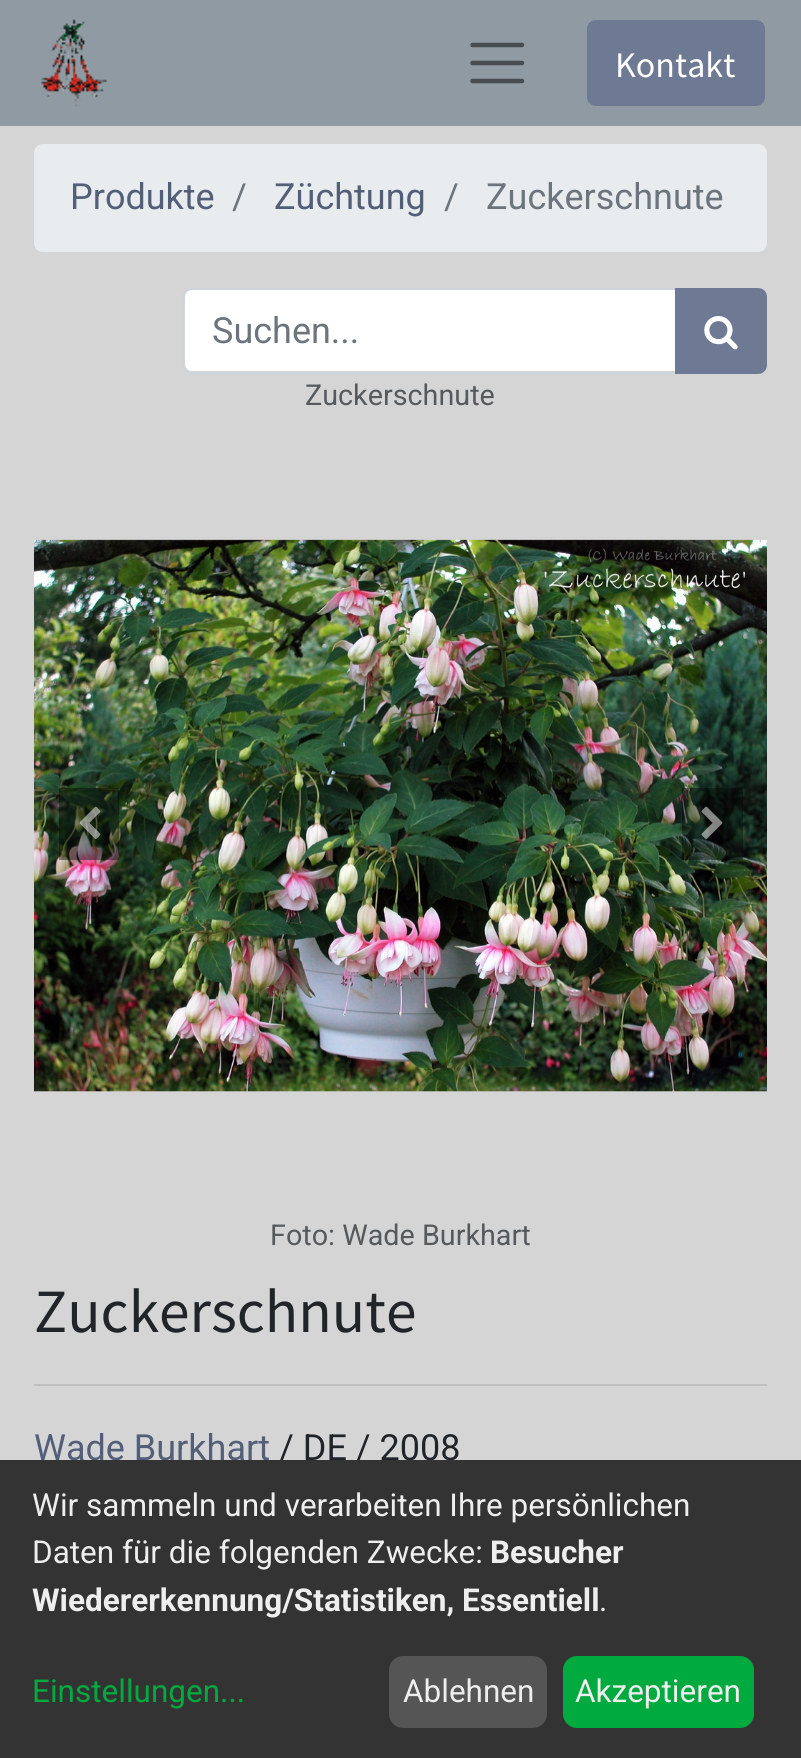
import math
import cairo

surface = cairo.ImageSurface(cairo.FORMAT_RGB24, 801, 1758)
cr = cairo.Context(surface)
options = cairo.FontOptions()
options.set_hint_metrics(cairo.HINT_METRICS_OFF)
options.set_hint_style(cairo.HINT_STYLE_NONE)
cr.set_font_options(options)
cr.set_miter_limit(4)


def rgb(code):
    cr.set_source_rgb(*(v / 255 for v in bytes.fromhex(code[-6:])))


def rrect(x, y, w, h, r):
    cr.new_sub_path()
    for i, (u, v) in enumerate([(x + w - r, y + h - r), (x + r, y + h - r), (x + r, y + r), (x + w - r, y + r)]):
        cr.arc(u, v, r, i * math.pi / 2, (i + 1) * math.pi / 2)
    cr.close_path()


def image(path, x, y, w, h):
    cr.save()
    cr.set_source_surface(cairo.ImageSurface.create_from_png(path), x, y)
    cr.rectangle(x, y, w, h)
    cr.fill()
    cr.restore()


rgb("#d5d5d5")
cr.paint()
rgb("#8f9aa2")
cr.rectangle(0, 0, 801, 126)
cr.fill()
image("img/1.png", 41, 19, 66, 88)
cr.new_path()
cr.move_to(472.5, 45)
cr.line_to(522, 45)
cr.move_to(472.5, 63)
cr.line_to(522, 63)
cr.move_to(472.5, 81)
cr.line_to(522, 81)
rgb("#484d51")
cr.set_line_width(4.5)
cr.set_line_cap(cairo.LINE_CAP_ROUND)
cr.stroke()
rgb("#6e7993")
rrect(588, 21, 176, 84, 8)
cr.fill_preserve()
cr.set_line_width(2)
cr.set_line_cap(cairo.LINE_CAP_BUTT)
cr.stroke()
rgb("#e9ecef")
rrect(34, 144, 733, 108, 9)
cr.fill()
rgb("#ffffff")
cr.new_path()
cr.move_to(192, 290)
cr.line_to(675, 290)
cr.line_to(675, 371)
cr.line_to(192, 371)
cr.curve_to(188, 371, 185, 368, 185, 364)
cr.line_to(185, 297)
cr.curve_to(185, 293, 188, 290, 192, 290)
cr.close_path()
cr.fill()
cr.new_path()
cr.move_to(191, 289)
cr.line_to(676, 289)
cr.line_to(676, 373)
cr.line_to(191, 373)
cr.curve_to(186.5, 373, 183, 369.5, 183, 365)
cr.line_to(183, 297)
cr.curve_to(183, 292.5, 186.5, 289, 191, 289)
cr.close_path()
rgb("#ced4da")
cr.stroke()
rgb("#6e7993")
cr.new_path()
cr.move_to(676, 289)
cr.line_to(758, 289)
cr.curve_to(762.5, 289, 766, 292.5, 766, 297)
cr.line_to(766, 365)
cr.curve_to(766, 369.5, 762.5, 373, 758, 373)
cr.line_to(676, 373)
cr.close_path()
cr.fill_preserve()
cr.stroke()
image("img/2.png", 704, 316, 34, 34)
image("img/4.png", 34, 539, 733, 553)
cr.set_source_rgba(0, 0, 0, 0.4)
cr.rectangle(59, 788, 60, 72)
cr.fill()
image("img/3.png", 79, 806, 22, 33)
cr.rectangle(682, 788, 61, 72)
cr.fill()
image("img/5.png", 701, 806, 22, 33)
rgb("#c0c0c0")
cr.rectangle(34, 1384, 733, 2)
cr.fill()
cr.select_font_face("Source Sans Pro")
cr.set_font_size(36)
rgb("#ffffff")
cr.move_to(615, 77)
cr.show_text("Kontakt")
cr.select_font_face("Roboto")
rgb("#535f78")
cr.move_to(70, 209)
cr.show_text("Produkte")
rgb("#6c757d")
cr.move_to(232, 209)
cr.show_text("/")
rgb("#535f78")
cr.move_to(274, 209)
cr.show_text("Züchtung")
rgb("#6c757d")
for x, y, s in [
    (444, 209, "/"),
    (486, 209, "Zuckerschnute"),
    (212, 343, "Suchen..."),
]:
    cr.move_to(x, y)
    cr.show_text(s)
cr.set_font_size(28.75)
rgb("#575a5d")
cr.move_to(305, 405)
cr.show_text("Zuckerschnute")
cr.move_to(270, 1245)
cr.show_text("Foto: Wade Burkhart")
cr.select_font_face("Source Sans Pro")
cr.set_font_size(61.5)
rgb("#212529")
cr.move_to(34, 1332)
cr.show_text("Zuckerschnute")
cr.select_font_face("Roboto")
cr.set_font_size(36)
rgb("#535f78")
cr.move_to(34, 1460)
cr.show_text("Wade Burkhart")
rgb("#212529")
cr.move_to(279, 1460)
cr.show_text("/ DE / 2008")
rgb("#333333")
cr.rectangle(0, 1460, 801, 298)
cr.fill()
cr.set_font_size(31.5)
rgb("#eeeeee")
cr.move_to(32, 1516)
cr.show_text("Wir sammeln und verarbeiten Ihre persönlichen")
cr.move_to(32, 1563)
cr.show_text("Daten für die folgenden Zwecke:")
cr.select_font_face("Roboto", cairo.FONT_SLANT_NORMAL, cairo.FONT_WEIGHT_BOLD)
cr.move_to(490, 1563)
cr.show_text("Besucher")
cr.move_to(32, 1611)
cr.show_text("Wiedererkennung/Statistiken, Essentiell")
cr.select_font_face("Roboto")
cr.move_to(599, 1611)
cr.show_text(".")
rgb("#00aa3e")
cr.move_to(32, 1702)
cr.show_text("Einstellungen...")
rgb("#555555")
rrect(389, 1656, 158, 72, 14)
cr.fill()
rgb("#eeeeee")
cr.move_to(403, 1702)
cr.show_text("Ablehnen")
rgb("#00aa3e")
rrect(563, 1656, 191, 72, 14)
cr.fill()
rgb("#eeeeee")
cr.move_to(575, 1702)
cr.show_text("Akzeptieren")
surface.write_to_png("page.png")
